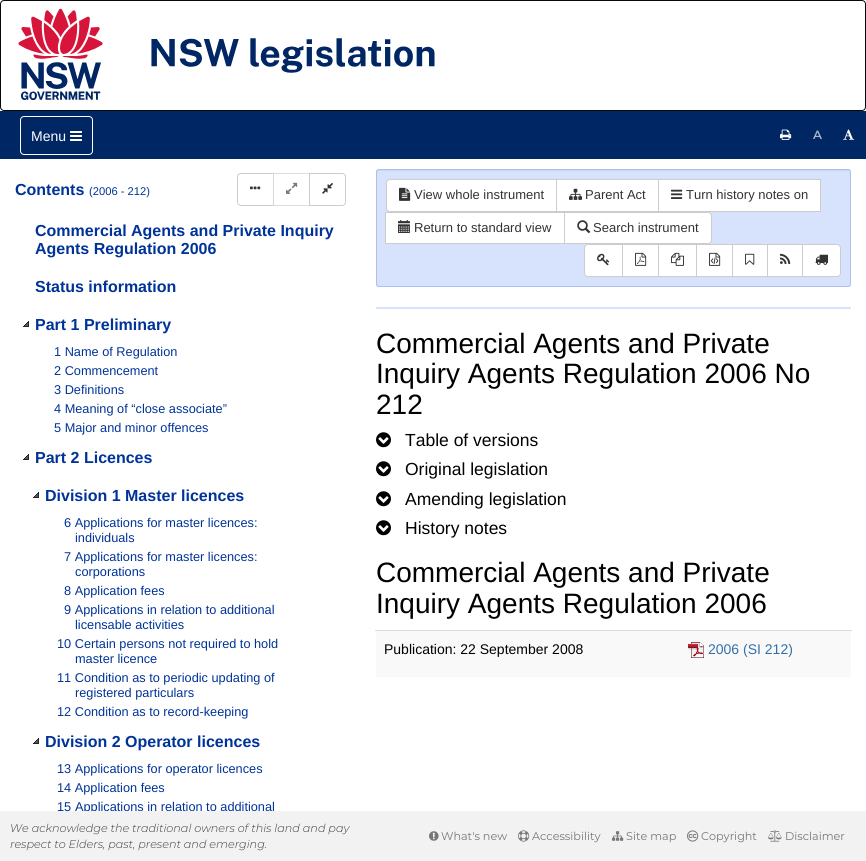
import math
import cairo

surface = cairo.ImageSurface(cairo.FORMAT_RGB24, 866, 861)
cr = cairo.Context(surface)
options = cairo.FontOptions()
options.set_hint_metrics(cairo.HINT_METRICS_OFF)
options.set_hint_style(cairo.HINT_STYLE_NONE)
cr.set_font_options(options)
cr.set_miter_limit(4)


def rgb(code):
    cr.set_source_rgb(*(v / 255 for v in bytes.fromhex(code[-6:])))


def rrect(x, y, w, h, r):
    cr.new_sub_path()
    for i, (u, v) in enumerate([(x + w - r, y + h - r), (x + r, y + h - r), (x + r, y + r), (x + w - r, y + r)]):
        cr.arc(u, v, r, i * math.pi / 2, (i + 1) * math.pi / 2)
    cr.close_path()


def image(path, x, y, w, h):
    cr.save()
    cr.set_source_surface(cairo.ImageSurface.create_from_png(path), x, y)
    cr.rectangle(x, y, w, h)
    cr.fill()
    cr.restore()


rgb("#ffffff")
cr.paint()
rrect(0.5, 0.5, 865, 110, 3.5)
rgb("#080808")
cr.set_line_width(1)
cr.stroke()
image("img/1.png", 18, 8, 417, 92)
rgb("#002664")
cr.rectangle(0, 111, 866, 48)
cr.fill()
rrect(20.5, 116.5, 72, 38, 3.5)
rgb("#ffffff")
cr.stroke()
image("img/2.png", 70, 131, 12, 10)
image("img/3.png", 780, 129, 12, 11)
image("img/4.png", 843, 129, 12, 11)
cr.new_path()
cr.move_to(241, 173.5)
cr.line_to(273.5, 173.5)
cr.line_to(273.5, 205.5)
cr.line_to(241, 205.5)
cr.curve_to(239, 205.5, 237.5, 204, 237.5, 202)
cr.line_to(237.5, 177)
cr.curve_to(237.5, 175, 239, 173.5, 241, 173.5)
cr.close_path()
rgb("#cccccc")
cr.stroke()
image("img/5.png", 250, 186, 11, 4)
cr.set_source_rgba(1, 1, 1, 0.65)
cr.rectangle(273, 173, 1, 33)
cr.fill()
cr.rectangle(273.5, 173.5, 36, 32)
cr.set_source_rgba(0.8, 0.8, 0.8, 0.65)
cr.stroke()
image("img/6.png", 286, 182, 12, 12)
rgb("#ffffff")
cr.new_path()
cr.move_to(309.5, 173.5)
cr.line_to(342, 173.5)
cr.curve_to(344, 173.5, 345.5, 175, 345.5, 177)
cr.line_to(345.5, 202)
cr.curve_to(345.5, 204, 344, 205.5, 342, 205.5)
cr.line_to(309.5, 205.5)
cr.close_path()
cr.fill_preserve()
rgb("#cccccc")
cr.stroke()
image("img/7.png", 322, 183, 11, 11)
image("img/8.png", 23, 321, 6, 6)
image("img/8.png", 23, 454, 6, 6)
image("img/8.png", 33, 492, 6, 6)
image("img/8.png", 33, 738, 6, 6)
rgb("#d7e2fc")
rrect(376, 169, 475, 118, 3)
cr.fill()
rgb("#ccd7ef")
cr.new_path()
cr.move_to(379, 171)
cr.line_to(848, 171)
cr.curve_to(849, 171, 850, 172, 850, 173)
cr.curve_to(850, 172, 850, 170, 848, 170)
cr.line_to(379, 170)
cr.line_to(377, 171)
cr.line_to(377, 173)
cr.curve_to(377, 172, 378, 171, 379, 171)
cr.close_path()
cr.fill()
rrect(376.5, 169.5, 474, 117, 2.5)
rgb("#aebfe9")
cr.stroke()
rgb("#ffffff")
cr.new_path()
cr.move_to(390, 179.5)
cr.line_to(556.5, 179.5)
cr.line_to(556.5, 211.5)
cr.line_to(390, 211.5)
cr.curve_to(388, 211.5, 386.5, 210, 386.5, 208)
cr.line_to(386.5, 183)
cr.curve_to(386.5, 181, 388, 179.5, 390, 179.5)
cr.close_path()
cr.fill_preserve()
rgb("#cccccc")
cr.stroke()
image("img/9.png", 399, 187, 12, 14)
rgb("#ffffff")
cr.rectangle(556.5, 179.5, 102, 32)
cr.fill_preserve()
rgb("#cccccc")
cr.stroke()
image("img/10.png", 569, 188, 13, 12)
rgb("#ffffff")
cr.rectangle(658.5, 179.5, 162, 32)
cr.fill_preserve()
rgb("#cccccc")
cr.stroke()
image("img/11.png", 671, 189, 12, 10)
rgb("#ffffff")
cr.rectangle(385.5, 212.5, 179, 31)
cr.fill_preserve()
rgb("#cccccc")
cr.stroke()
image("img/12.png", 398, 220, 12, 13)
rgb("#ffffff")
cr.new_path()
cr.move_to(564.5, 212.5)
cr.line_to(708, 212.5)
cr.curve_to(710, 212.5, 711.5, 214, 711.5, 216)
cr.line_to(711.5, 240)
cr.curve_to(711.5, 242, 710, 243.5, 708, 243.5)
cr.line_to(564.5, 243.5)
cr.close_path()
cr.fill_preserve()
rgb("#cccccc")
cr.stroke()
image("img/13.png", 577, 220, 14, 14)
rgb("#ffffff")
cr.new_path()
cr.move_to(588, 244.5)
cr.line_to(622.5, 244.5)
cr.line_to(622.5, 276.5)
cr.line_to(588, 276.5)
cr.curve_to(586, 276.5, 584.5, 275, 584.5, 273)
cr.line_to(584.5, 248)
cr.curve_to(584.5, 246, 586, 244.5, 588, 244.5)
cr.close_path()
cr.fill_preserve()
rgb("#cccccc")
cr.stroke()
image("img/14.png", 597, 253, 13, 13)
rgb("#ffffff")
cr.rectangle(622.5, 244.5, 36, 32)
cr.fill_preserve()
rgb("#cccccc")
cr.stroke()
image("img/15.png", 635, 252, 12, 14)
rgb("#ffffff")
cr.rectangle(658.5, 244.5, 38, 32)
cr.fill_preserve()
rgb("#cccccc")
cr.stroke()
image("img/16.png", 671, 252, 13, 14)
rgb("#ffffff")
cr.rectangle(696.5, 244.5, 36, 32)
cr.fill_preserve()
rgb("#cccccc")
cr.stroke()
image("img/17.png", 709, 252, 12, 14)
rgb("#ffffff")
cr.rectangle(732.5, 244.5, 35, 32)
cr.fill_preserve()
rgb("#cccccc")
cr.stroke()
image("img/18.png", 745, 253, 10, 12)
rgb("#ffffff")
cr.rectangle(767.5, 244.5, 35, 32)
cr.fill_preserve()
rgb("#cccccc")
cr.stroke()
image("img/19.png", 780, 253, 11, 11)
rgb("#ffffff")
cr.new_path()
cr.move_to(802.5, 244.5)
cr.line_to(837, 244.5)
cr.curve_to(839, 244.5, 840.5, 246, 840.5, 248)
cr.line_to(840.5, 273)
cr.curve_to(840.5, 275, 839, 276.5, 837, 276.5)
cr.line_to(802.5, 276.5)
cr.close_path()
cr.fill_preserve()
rgb("#cccccc")
cr.stroke()
image("img/20.png", 815, 254, 13, 11)
rgb("#d7e2fc")
cr.rectangle(376, 307, 475, 2)
cr.fill()
image("img/21.png", 376, 432, 15, 16)
image("img/21.png", 376, 461, 15, 16)
image("img/21.png", 376, 491, 15, 16)
image("img/21.png", 376, 520, 15, 16)
rgb("#f9f9f9")
cr.rectangle(376, 631, 475, 46)
cr.fill()
rgb("#dddddd")
cr.rectangle(375, 630, 477, 1)
cr.fill()
image("img/22.png", 688, 642, 16, 16)
rgb("#f2f2f2")
cr.rectangle(0, 811, 866, 50)
cr.fill()
image("img/23.png", 429, 831, 10, 10)
image("img/24.png", 518, 830, 12, 12)
image("img/25.png", 612, 831, 12, 10)
image("img/26.png", 687, 830, 12, 12)
image("img/27.png", 768, 830, 14, 12)
cr.select_font_face("Liberation Sans")
cr.set_font_size(14)
rgb("#ffffff")
cr.move_to(31, 141)
cr.show_text("Menu")
cr.select_font_face("Montserrat SemiBold")
cr.set_font_size(12)
rgb("#a6b3c9")
cr.move_to(813, 139)
cr.show_text("A")
cr.select_font_face("Liberation Sans", cairo.FONT_SLANT_NORMAL, cairo.FONT_WEIGHT_BOLD)
cr.set_font_size(16)
rgb("#003399")
cr.move_to(15, 195)
cr.show_text("Contents")
cr.select_font_face("Liberation Sans")
cr.set_font_size(11.2)
cr.move_to(89, 195)
cr.show_text("(2006 - 212)")
cr.select_font_face("Liberation Sans", cairo.FONT_SLANT_NORMAL, cairo.FONT_WEIGHT_BOLD)
cr.set_font_size(16)
for x, y, s in [
    (35, 236, "Commercial Agents and Private Inquiry"),
    (35, 254, "Agents Regulation 2006"),
    (35, 292, "Status information"),
    (35, 330, "Part 1 Preliminary"),
]:
    cr.move_to(x, y)
    cr.show_text(s)
cr.select_font_face("Liberation Sans")
cr.set_font_size(12.75)
for x, y, s in [
    (54, 356, "1 Name of Regulation"),
    (54, 375, "2 Commencement"),
    (54, 394, "3 Definitions"),
    (54, 413, "4 Meaning of “close associate”"),
    (54, 432, "5 Major and minor offences"),
]:
    cr.move_to(x, y)
    cr.show_text(s)
cr.select_font_face("Liberation Sans", cairo.FONT_SLANT_NORMAL, cairo.FONT_WEIGHT_BOLD)
cr.set_font_size(16)
cr.move_to(35, 463)
cr.show_text("Part 2 Licences")
cr.move_to(45, 501)
cr.show_text("Division 1 Master licences")
cr.select_font_face("Liberation Sans")
cr.set_font_size(12.75)
for x, y, s in [
    (64, 527, "6 Applications for master licences:"),
    (75, 542, "individuals"),
    (64, 561, "7 Applications for master licences:"),
    (75, 576, "corporations"),
    (64, 595, "8 Application fees"),
    (64, 614, "9 Applications in relation to additional"),
    (75, 629, "licensable activities"),
    (57, 648, "10 Certain persons not required to hold"),
    (75, 663, "master licence"),
    (57, 682, "11 Condition as to periodic updating of"),
    (75, 697, "registered particulars"),
    (57, 716, "12 Condition as to record-keeping"),
]:
    cr.move_to(x, y)
    cr.show_text(s)
cr.select_font_face("Liberation Sans", cairo.FONT_SLANT_NORMAL, cairo.FONT_WEIGHT_BOLD)
cr.set_font_size(16)
cr.move_to(45, 747)
cr.show_text("Division 2 Operator licences")
cr.select_font_face("Liberation Sans")
cr.set_font_size(12.75)
for x, y, s in [
    (57, 773, "13 Applications for operator licences"),
    (57, 792, "14 Application fees"),
    (57, 811, "15"),
]:
    cr.move_to(x, y)
    cr.show_text(s)
cr.save()
cr.rectangle(0, 159, 361, 652)
cr.clip()
cr.move_to(75, 811)
cr.show_text("Applications in relation to additional")
cr.restore()
cr.set_font_size(13)
rgb("#333333")
for x, y, s in [
    (414, 199, "View whole instrument"),
    (585, 199, "Parent Act"),
    (686, 199, "Turn history notes on"),
    (414, 232, "Return to standard view"),
    (593, 232, "Search instrument"),
]:
    cr.move_to(x, y)
    cr.show_text(s)
cr.set_font_size(28)
rgb("#000000")
for x, y, s in [
    (376, 353, "Commercial Agents and Private"),
    (376, 383, "Inquiry Agents Regulation 2006 No"),
    (376, 414, "212"),
]:
    cr.move_to(x, y)
    cr.show_text(s)
cr.set_font_size(17.5)
for x, y, s in [
    (405, 446, "Table of versions"),
    (405, 475, "Original legislation"),
    (405, 505, "Amending legislation"),
    (405, 534, "History notes"),
]:
    cr.move_to(x, y)
    cr.show_text(s)
cr.set_font_size(28)
cr.move_to(376, 582)
cr.show_text("Commercial Agents and Private")
cr.move_to(376, 613)
cr.show_text("Inquiry Agents Regulation 2006")
cr.set_font_size(14)
cr.move_to(384, 654)
cr.show_text("Publication: 22 September 2008")
rgb("#3170ab")
cr.move_to(708, 654)
cr.show_text("2006 (SI 212)")
cr.select_font_face("Montserrat Light", cairo.FONT_SLANT_ITALIC)
cr.set_font_size(11.2)
rgb("#3d3d3d")
cr.move_to(10, 832)
cr.show_text("We acknowledge the traditional owners of this land and pay")
cr.move_to(10, 848)
cr.show_text("respect to Elders, past, present and emerging.")
cr.select_font_face("Montserrat")
rgb("#777777")
for x, y, s in [
    (441, 840, "What's new"),
    (532, 840, "Accessibility"),
    (626, 840, "Site map"),
    (701, 840, "Copyright"),
    (785, 840, "Disclaimer"),
]:
    cr.move_to(x, y)
    cr.show_text(s)
surface.write_to_png("page.png")
